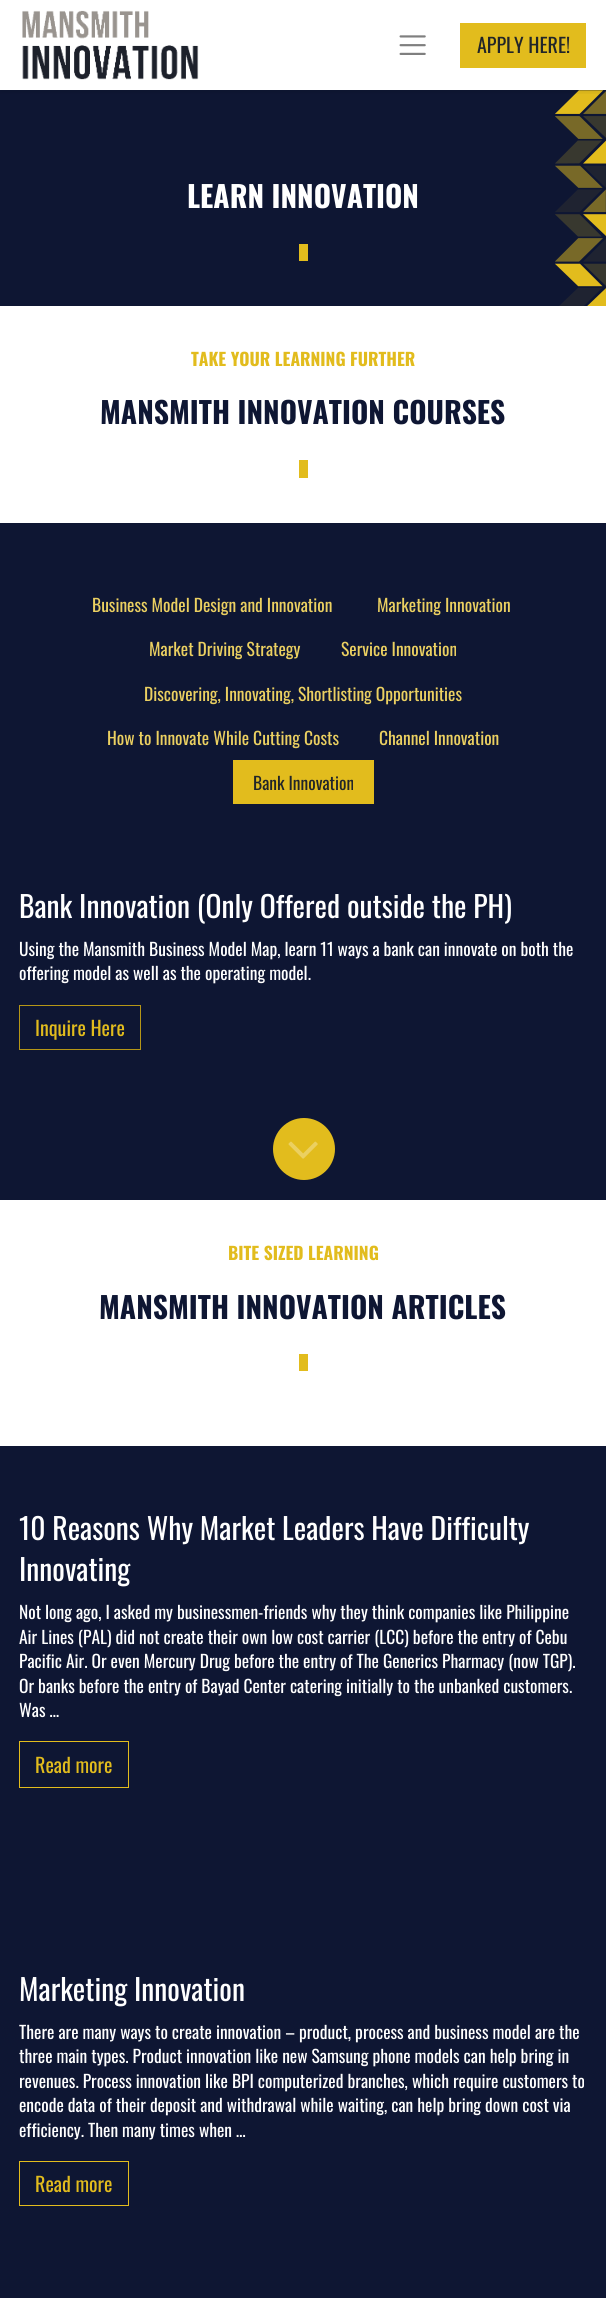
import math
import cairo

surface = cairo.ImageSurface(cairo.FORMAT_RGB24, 606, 2298)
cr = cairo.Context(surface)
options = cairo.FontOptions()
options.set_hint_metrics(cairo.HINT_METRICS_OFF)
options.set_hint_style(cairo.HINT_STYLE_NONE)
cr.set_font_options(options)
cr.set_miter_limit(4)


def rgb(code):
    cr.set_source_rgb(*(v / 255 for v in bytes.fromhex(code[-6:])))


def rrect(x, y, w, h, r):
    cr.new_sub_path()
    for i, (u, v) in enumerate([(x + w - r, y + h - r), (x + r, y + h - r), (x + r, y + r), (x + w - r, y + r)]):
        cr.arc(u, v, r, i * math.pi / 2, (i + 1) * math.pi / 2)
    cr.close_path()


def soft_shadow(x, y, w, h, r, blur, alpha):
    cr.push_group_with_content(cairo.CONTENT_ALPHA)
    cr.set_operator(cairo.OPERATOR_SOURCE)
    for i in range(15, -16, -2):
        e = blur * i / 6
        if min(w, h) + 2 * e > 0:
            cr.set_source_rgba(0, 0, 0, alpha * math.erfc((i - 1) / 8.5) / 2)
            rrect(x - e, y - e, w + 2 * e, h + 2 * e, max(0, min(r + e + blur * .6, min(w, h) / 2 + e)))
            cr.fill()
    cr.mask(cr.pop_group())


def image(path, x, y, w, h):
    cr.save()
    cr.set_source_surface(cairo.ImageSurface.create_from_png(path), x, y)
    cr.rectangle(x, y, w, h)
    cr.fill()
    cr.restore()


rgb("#ffffff")
cr.paint()
rgb("#0e1633")
cr.rectangle(0, 90, 606, 216)
cr.fill()
image("img/3.png", 555, 90, 51, 216)
cr.save()
cr.rectangle(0, 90, 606, 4)
cr.clip()
rgb("#000000")
soft_shadow(0, 3, 606, 90, 0, 2.5, 0.07)
cr.restore()
image("img/1.png", 22, 10, 177, 70)
image("img/2.png", 399, 35, 27, 20)
for x, y, w, h, color in [
    (460, 23, 126, 45, "#e2bc1d"),
    (299, 244, 9, 17, "#e2bc1d"),
    (299, 460, 9, 18, "#e2bc1d"),
    (0, 523, 606, 677, "#0e1633"),
    (233, 760, 141, 44, "#e2bc1d"),
]:
    rgb(color)
    cr.rectangle(x, y, w, h)
    cr.fill()
cr.rectangle(19.5, 1005.5, 121, 44)
rgb("#b59617")
cr.set_line_width(1)
cr.stroke()
rgb("#e2bc1d")
cr.arc(304, 1149, 31, 0, 2 * math.pi)
cr.fill()
image("img/4.png", 288, 1141, 30, 18)
cr.rectangle(299, 1354, 9, 17)
cr.fill()
rgb("#0e1633")
cr.rectangle(0, 1446, 606, 852)
cr.fill()
cr.rectangle(19.5, 1741.5, 109, 46)
rgb("#e2bc1d")
cr.stroke()
cr.rectangle(19.5, 2161.5, 109, 44)
cr.stroke()
cr.select_font_face("Oswald")
cr.set_font_size(20)
rgb("#212529")
cr.move_to(477, 53)
cr.show_text("APPLY HERE!")
cr.select_font_face("Oswald", cairo.FONT_SLANT_NORMAL, cairo.FONT_WEIGHT_BOLD)
cr.set_font_size(29.6)
rgb("#ffffff")
cr.move_to(187, 208)
cr.show_text("LEARN INNOVATION")
cr.set_font_size(17.5)
rgb("#e2bc1d")
cr.move_to(191, 366)
cr.show_text("TAKE YOUR LEARNING FURTHER")
cr.set_font_size(29.6)
rgb("#0e1633")
cr.move_to(100, 424)
cr.show_text("MANSMITH INNOVATION COURSES")
cr.select_font_face("Oswald")
cr.set_font_size(17.5)
rgb("#ebd061")
for x, y, s in [
    (92, 612, "Business Model Design and Innovation"),
    (377, 612, "Marketing Innovation"),
    (149, 656, "Market Driving Strategy"),
    (341, 656, "Service Innovation"),
    (144, 701, "Discovering, Innovating, Shortlisting Opportunities"),
    (107, 745, "How to Innovate While Cutting Costs"),
    (379, 745, "Channel Innovation"),
]:
    cr.move_to(x, y)
    cr.show_text(s)
rgb("#212529")
cr.move_to(253, 790)
cr.show_text("Bank Innovation")
cr.set_font_size(29.6)
rgb("#ffffff")
cr.move_to(19, 918)
cr.show_text("Bank Innovation (Only Offered outside the PH)")
cr.set_font_size(17.5)
cr.move_to(19, 956)
cr.show_text("Using the Mansmith Business Model Map, learn 11 ways a bank can innovate on both the")
cr.move_to(19, 980)
cr.show_text("offering model as well as the operating model.")
cr.set_font_size(20)
rgb("#e2bc1d")
cr.move_to(35, 1036)
cr.show_text("Inquire Here")
cr.select_font_face("Oswald", cairo.FONT_SLANT_NORMAL, cairo.FONT_WEIGHT_BOLD)
cr.set_font_size(17.5)
cr.move_to(228, 1260)
cr.show_text("BITE SIZED LEARNING")
cr.set_font_size(29.6)
rgb("#0e1633")
cr.move_to(99, 1319)
cr.show_text("MANSMITH INNOVATION ARTICLES")
cr.select_font_face("Oswald")
rgb("#ffffff")
cr.move_to(19, 1540)
cr.show_text("10 Reasons Why Market Leaders Have Difficulty")
cr.move_to(19, 1581)
cr.show_text("Innovating")
cr.set_font_size(17.5)
for x, y, s in [
    (19, 1619, "Not long ago, I asked my businessmen-friends why they think companies like Philippine"),
    (19, 1644, "Air Lines (PAL) did not create their own low cost carrier (LCC) before the entry of Cebu"),
    (19, 1668, "Pacific Air. Or even Mercury Drug before the entry of The Generics Pharmacy (now TGP)."),
    (19, 1693, "Or banks before the entry of Bayad Center catering initially to the unbanked customers."),
    (19, 1717, "Was …"),
]:
    cr.move_to(x, y)
    cr.show_text(s)
cr.set_font_size(20)
rgb("#e2bc1d")
cr.move_to(35, 1773)
cr.show_text("Read more")
cr.set_font_size(29.6)
rgb("#ffffff")
cr.move_to(19, 2001)
cr.show_text("Marketing Innovation")
cr.set_font_size(17.5)
for x, y, s in [
    (19, 2039, "There are many ways to create innovation – product, process and business model are the"),
    (19, 2063, "three main types. Product innovation like new Samsung phone models can help bring in"),
    (19, 2088, "revenues. Process innovation like BPI computerized branches, which require customers to"),
    (19, 2112, "encode data of their deposit and withdrawal while waiting, can help bring down cost via"),
    (19, 2137, "efficiency. Then many times when …"),
]:
    cr.move_to(x, y)
    cr.show_text(s)
cr.set_font_size(20)
rgb("#e2bc1d")
cr.move_to(35, 2192)
cr.show_text("Read more")
surface.write_to_png("page.png")
